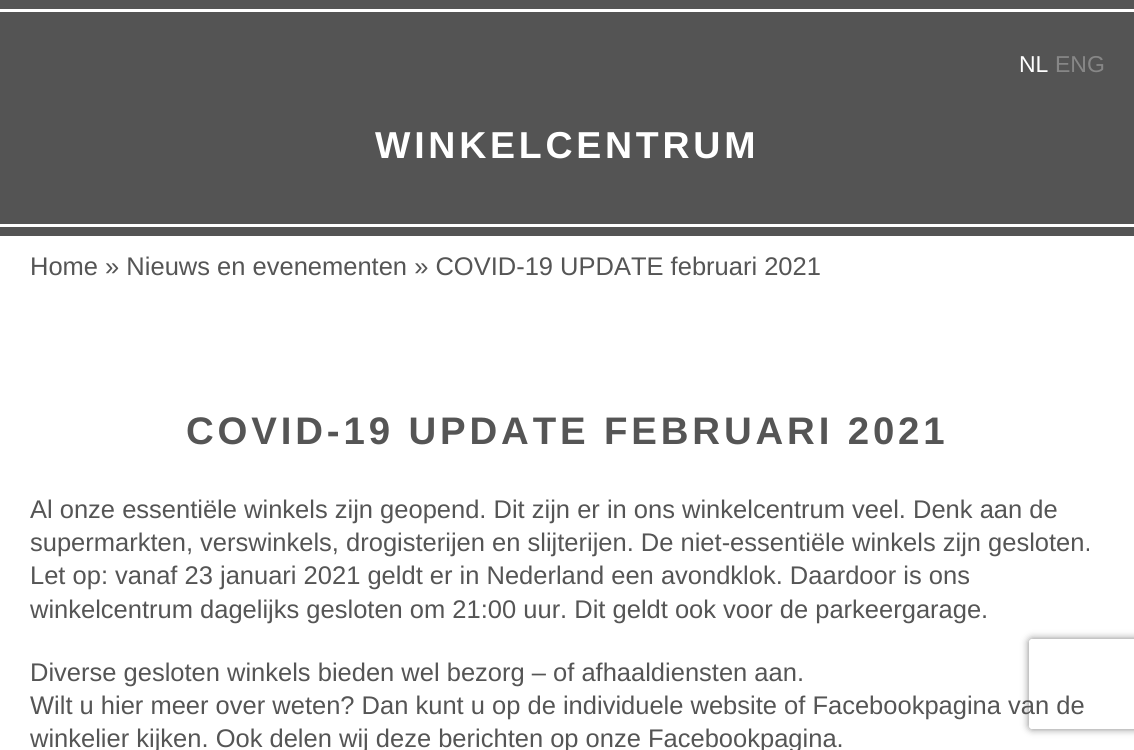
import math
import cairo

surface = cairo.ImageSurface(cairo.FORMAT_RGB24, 1134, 750)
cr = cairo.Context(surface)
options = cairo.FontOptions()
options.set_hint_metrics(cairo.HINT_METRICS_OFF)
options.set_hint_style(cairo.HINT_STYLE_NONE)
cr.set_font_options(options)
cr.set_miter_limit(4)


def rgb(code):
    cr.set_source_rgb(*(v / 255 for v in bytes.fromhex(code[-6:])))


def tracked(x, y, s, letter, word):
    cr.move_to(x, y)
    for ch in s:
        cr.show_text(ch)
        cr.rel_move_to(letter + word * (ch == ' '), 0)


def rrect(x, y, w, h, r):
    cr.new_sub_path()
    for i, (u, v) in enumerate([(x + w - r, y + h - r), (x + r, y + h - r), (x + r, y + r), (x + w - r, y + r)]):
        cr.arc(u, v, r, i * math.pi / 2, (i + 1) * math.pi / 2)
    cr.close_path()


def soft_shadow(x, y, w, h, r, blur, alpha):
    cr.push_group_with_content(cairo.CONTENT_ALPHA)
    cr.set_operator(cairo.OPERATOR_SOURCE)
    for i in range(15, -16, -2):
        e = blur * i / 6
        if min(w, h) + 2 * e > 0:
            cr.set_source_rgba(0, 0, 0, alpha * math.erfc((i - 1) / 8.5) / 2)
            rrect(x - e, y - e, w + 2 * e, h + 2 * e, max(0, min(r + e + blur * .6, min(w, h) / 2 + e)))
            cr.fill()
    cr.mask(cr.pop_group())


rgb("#ffffff")
cr.paint()
for x, y, w, h, color in [
    (0, 0, 1134, 236, "#545454"),
    (0, 9, 1134, 3, "#ffffff"),
    (0, 224, 1134, 3, "#ffffff"),
]:
    rgb(color)
    cr.rectangle(x, y, w, h)
    cr.fill()
cr.save()
cr.set_fill_rule(cairo.FILL_RULE_EVEN_ODD)
cr.new_path()
cr.move_to(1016, 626)
cr.line_to(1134, 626)
cr.line_to(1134, 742)
cr.line_to(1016, 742)
cr.close_path()
cr.move_to(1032, 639)
cr.line_to(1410, 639)
cr.curve_to(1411.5, 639, 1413, 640.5, 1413, 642)
cr.line_to(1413, 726)
cr.curve_to(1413, 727.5, 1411.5, 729, 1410, 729)
cr.line_to(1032, 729)
cr.curve_to(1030.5, 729, 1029, 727.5, 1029, 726)
cr.line_to(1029, 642)
cr.curve_to(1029, 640.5, 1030.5, 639, 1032, 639)
cr.close_path()
cr.clip()
rgb("#808080")
soft_shadow(1029, 639, 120, 90, 3, 4, 1)
cr.restore()
cr.select_font_face("Liberation Sans")
cr.set_font_size(23)
cr.move_to(1019, 72)
cr.show_text("NL")
rgb("#878787")
cr.move_to(1055, 72)
cr.show_text("ENG")
cr.select_font_face("Liberation Sans", cairo.FONT_SLANT_NORMAL, cairo.FONT_WEIGHT_BOLD)
cr.set_font_size(37.5)
rgb("#ffffff")
tracked(375, 158, "WINKELCENTRUM", 3.75, 0)
cr.select_font_face("Liberation Sans")
cr.set_font_size(25.5)
rgb("#555555")
cr.move_to(30, 275)
cr.show_text("Home » Nieuws en evenementen » COVID-19 UPDATE februari 2021")
cr.select_font_face("Liberation Sans", cairo.FONT_SLANT_NORMAL, cairo.FONT_WEIGHT_BOLD)
cr.set_font_size(38.4)
tracked(186, 444, "COVID-19 UPDATE FEBRUARI 2021", 3.85, 0)
cr.select_font_face("Liberation Sans")
cr.set_font_size(25.5)
for x, y, s in [
    (30, 518, "Al onze essentiële winkels zijn geopend. Dit zijn er in ons winkelcentrum veel. Denk aan de"),
    (30, 551, "supermarkten, verswinkels, drogisterijen en slijterijen. De niet-essentiële winkels zijn gesloten."),
    (30, 584, "Let op: vanaf 23 januari 2021 geldt er in Nederland een avondklok. Daardoor is ons"),
    (30, 618, "winkelcentrum dagelijks gesloten om 21:00 uur. Dit geldt ook voor de parkeergarage."),
    (30, 681, "Diverse gesloten winkels bieden wel bezorg – of afhaaldiensten aan."),
    (30, 714, "Wilt u hier meer over weten? Dan kunt u op de individuele website of Facebookpagina van de"),
    (30, 747, "winkelier kijken. Ook delen wij deze berichten op onze Facebookpagina."),
]:
    cr.move_to(x, y)
    cr.show_text(s)
surface.write_to_png("page.png")
